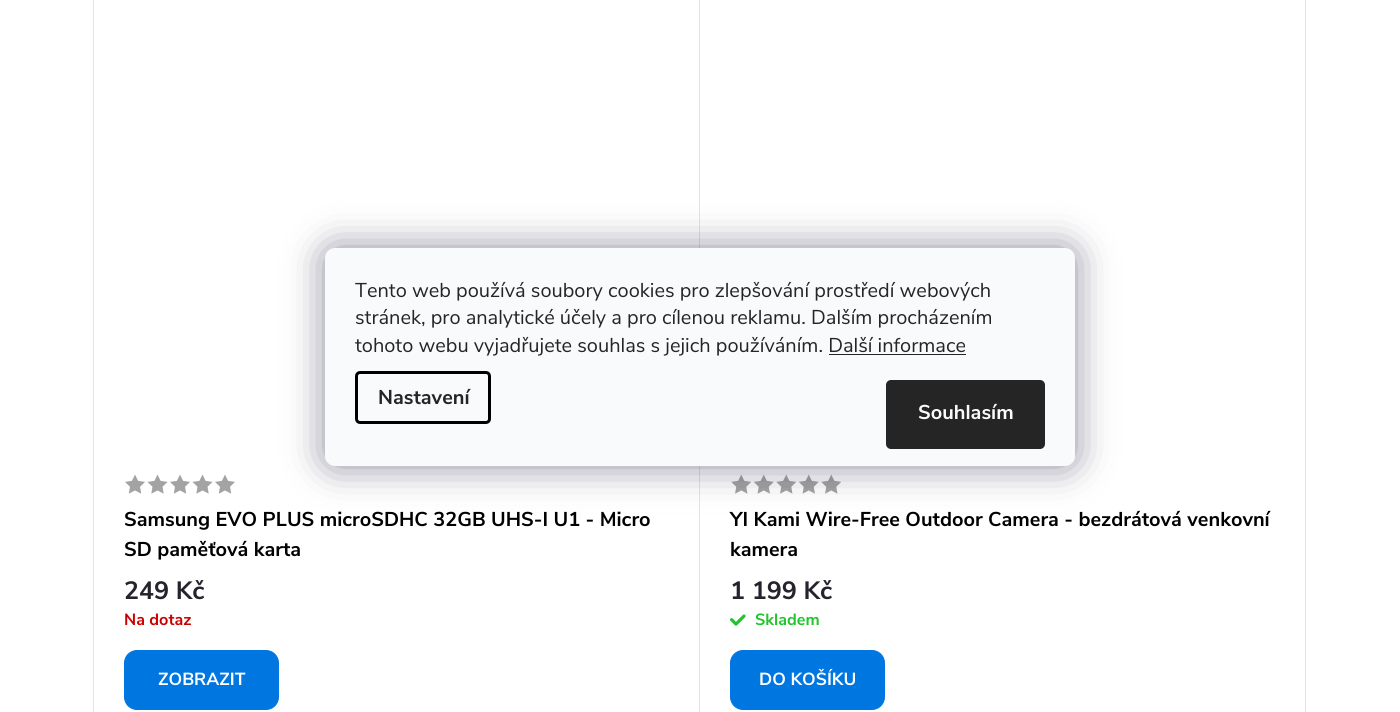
import math
import cairo

surface = cairo.ImageSurface(cairo.FORMAT_RGB24, 1400, 712)
cr = cairo.Context(surface)
options = cairo.FontOptions()
options.set_hint_metrics(cairo.HINT_METRICS_OFF)
options.set_hint_style(cairo.HINT_STYLE_NONE)
cr.set_font_options(options)
cr.set_miter_limit(4)


def rgb(code):
    cr.set_source_rgb(*(v / 255 for v in bytes.fromhex(code[-6:])))


def rrect(x, y, w, h, r):
    cr.new_sub_path()
    for i, (u, v) in enumerate([(x + w - r, y + h - r), (x + r, y + h - r), (x + r, y + r), (x + w - r, y + r)]):
        cr.arc(u, v, r, i * math.pi / 2, (i + 1) * math.pi / 2)
    cr.close_path()


def soft_shadow(x, y, w, h, r, blur, alpha):
    cr.push_group_with_content(cairo.CONTENT_ALPHA)
    cr.set_operator(cairo.OPERATOR_SOURCE)
    for i in range(15, -16, -2):
        e = blur * i / 6
        if min(w, h) + 2 * e > 0:
            cr.set_source_rgba(0, 0, 0, alpha * math.erfc((i - 1) / 8.5) / 2)
            rrect(x - e, y - e, w + 2 * e, h + 2 * e, max(0, min(r + e + blur * .6, min(w, h) / 2 + e)))
            cr.fill()
    cr.mask(cr.pop_group())


def image(path, x, y, w, h):
    cr.save()
    cr.set_source_surface(cairo.ImageSurface.create_from_png(path), x, y)
    cr.rectangle(x, y, w, h)
    cr.fill()
    cr.restore()


rgb("#ffffff")
cr.paint()
cr.rectangle(93.5, -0.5, 1212, 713)
rgb("#e4e4e4")
cr.set_line_width(1)
cr.stroke()
cr.rectangle(699, 0, 1, 712)
cr.fill()
image("img/3.png", 731, 474, 20, 20)
image("img/4.png", 754, 474, 20, 20)
image("img/3.png", 776, 474, 20, 20)
image("img/4.png", 799, 474, 20, 20)
image("img/3.png", 821, 474, 20, 20)
rgb("#1b1939")
soft_shadow(325, 248, 750, 218, 10, 19, 0.5)
rgb("#f8fafb")
rrect(325, 248, 750, 218, 10)
cr.fill()
rgb("#252525")
cr.rectangle(829, 354, 137, 1)
cr.fill()
rrect(356.5, 372.5, 133, 50, 3.5)
rgb("#000000")
cr.set_line_width(3)
cr.stroke()
rgb("#252525")
rrect(886, 380, 159, 69, 5)
cr.fill()
image("img/1.png", 125, 474, 20, 20)
image("img/2.png", 147, 474, 21, 20)
image("img/1.png", 170, 474, 20, 20)
image("img/2.png", 192, 474, 21, 20)
image("img/1.png", 215, 474, 20, 20)
rgb("#0076e1")
rrect(124.5, 650.5, 154, 59, 12.5)
cr.fill_preserve()
cr.set_line_width(1)
cr.stroke()
image("img/5.png", 730, 614, 16, 12)
rrect(730.5, 650.5, 154, 59, 12.5)
cr.fill_preserve()
cr.stroke()
cr.select_font_face("Nunito Sans")
cr.set_font_size(20)
rgb("#252525")
for x, y, s in [
    (355, 297, "Tento web používá soubory cookies pro zlepšování prostředí webových"),
    (355, 324, "stránek, pro analytické účely a pro cílenou reklamu. Dalším procházením"),
    (355, 352, "tohoto webu vyjadřujete souhlas s jejich používáním. Další informace"),
]:
    cr.move_to(x, y)
    cr.show_text(s)
cr.select_font_face("Nunito Sans", cairo.FONT_SLANT_NORMAL, cairo.FONT_WEIGHT_BOLD)
cr.move_to(378, 404)
cr.show_text("Nastavení")
rgb("#f8fafb")
cr.move_to(918, 419)
cr.show_text("Souhlasím")
rgb("#000000")
cr.move_to(124, 526)
cr.show_text("Samsung EVO PLUS microSDHC 32GB UHS-I U1 - Micro")
cr.move_to(124, 556)
cr.show_text("SD paměťová karta")
cr.set_font_size(25)
rgb("#24242e")
cr.move_to(124, 599)
cr.show_text("249 Kč")
cr.set_font_size(16.25)
rgb("#cb0000")
cr.move_to(124, 625)
cr.show_text("Na dotaz")
cr.set_font_size(17.5)
rgb("#ffffff")
cr.move_to(158, 685)
cr.show_text("ZOBRAZIT")
cr.set_font_size(20)
rgb("#000000")
cr.move_to(730, 526)
cr.show_text("YI Kami Wire-Free Outdoor Camera - bezdrátová venkovní")
cr.move_to(730, 556)
cr.show_text("kamera")
cr.set_font_size(25)
rgb("#24242e")
cr.move_to(730, 599)
cr.show_text("1 199 Kč")
cr.set_font_size(16.25)
rgb("#20c52c")
cr.move_to(755, 625)
cr.show_text("Skladem")
cr.set_font_size(17.5)
rgb("#ffffff")
cr.move_to(759, 685)
cr.show_text("DO KOŠÍKU")
surface.write_to_png("page.png")
